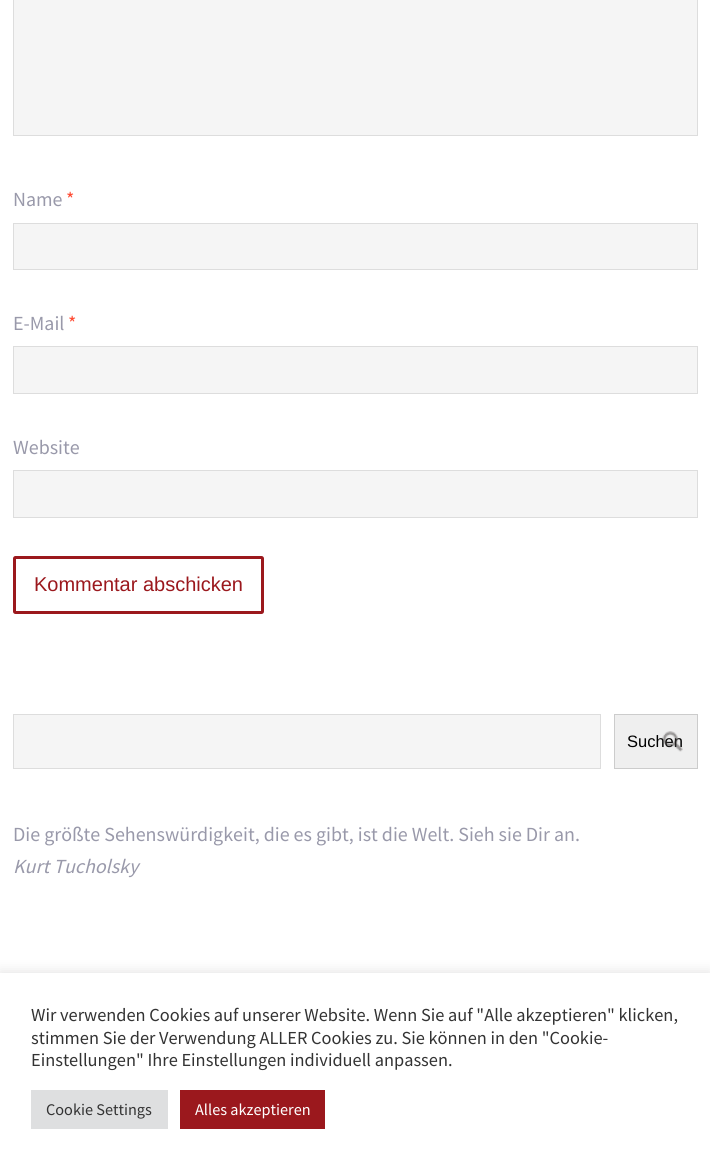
import math
import cairo

surface = cairo.ImageSurface(cairo.FORMAT_RGB24, 710, 1166)
cr = cairo.Context(surface)
options = cairo.FontOptions()
options.set_hint_metrics(cairo.HINT_METRICS_OFF)
options.set_hint_style(cairo.HINT_STYLE_NONE)
cr.set_font_options(options)
cr.set_miter_limit(4)


def rgb(code):
    cr.set_source_rgb(*(v / 255 for v in bytes.fromhex(code[-6:])))


def rrect(x, y, w, h, r):
    cr.new_sub_path()
    for i, (u, v) in enumerate([(x + w - r, y + h - r), (x + r, y + h - r), (x + r, y + r), (x + w - r, y + r)]):
        cr.arc(u, v, r, i * math.pi / 2, (i + 1) * math.pi / 2)
    cr.close_path()


def soft_shadow(x, y, w, h, r, blur, alpha):
    cr.push_group_with_content(cairo.CONTENT_ALPHA)
    cr.set_operator(cairo.OPERATOR_SOURCE)
    for i in range(15, -16, -2):
        e = blur * i / 6
        if min(w, h) + 2 * e > 0:
            cr.set_source_rgba(0, 0, 0, alpha * math.erfc((i - 1) / 8.5) / 2)
            rrect(x - e, y - e, w + 2 * e, h + 2 * e, max(0, min(r + e + blur * .6, min(w, h) / 2 + e)))
            cr.fill()
    cr.mask(cr.pop_group())


def image(path, x, y, w, h):
    cr.save()
    cr.set_source_surface(cairo.ImageSurface.create_from_png(path), x, y)
    cr.rectangle(x, y, w, h)
    cr.fill()
    cr.restore()


rgb("#ffffff")
cr.paint()
rgb("#f5f5f5")
cr.rectangle(13.5, -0.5, 684, 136)
cr.fill_preserve()
rgb("#dddddd")
cr.set_line_width(1)
cr.stroke()
rgb("#f5f5f5")
cr.rectangle(13.5, 223.5, 684, 46)
cr.fill_preserve()
rgb("#dddddd")
cr.stroke()
rgb("#f5f5f5")
cr.rectangle(13.5, 346.5, 684, 47)
cr.fill_preserve()
rgb("#dddddd")
cr.stroke()
rgb("#f5f5f5")
cr.rectangle(13.5, 470.5, 684, 47)
cr.fill_preserve()
rgb("#dddddd")
cr.stroke()
rrect(14.5, 557.5, 248, 55, 1)
rgb("#9b181d")
cr.set_line_width(3)
cr.stroke()
rgb("#f5f5f5")
cr.rectangle(13.5, 714.5, 587, 54)
cr.fill_preserve()
rgb("#dddddd")
cr.set_line_width(1)
cr.stroke()
rgb("#efefef")
cr.rectangle(614.5, 714.5, 83, 54)
cr.fill_preserve()
rgb("#cccccc")
cr.stroke()
rgb("#acabab")
soft_shadow(0, 971, 710, 194, 0, 6, 0.3)
for x, y, w, h, color in [
    (0, 973, 710, 193, "#ffffff"),
    (31, 1090, 137, 39, "#dedfe0"),
    (180, 1090, 145, 39, "#9b181d"),
]:
    rgb(color)
    cr.rectangle(x, y, w, h)
    cr.fill()
cr.select_font_face("Source Sans Pro")
cr.set_font_size(20)
rgb("#9999aa")
cr.move_to(13, 206)
cr.show_text("Name")
rgb("#ff4b33")
cr.move_to(66, 206)
cr.show_text("*")
rgb("#9999aa")
cr.move_to(13, 330)
cr.show_text("E-Mail")
rgb("#ff4b33")
cr.move_to(68, 330)
cr.show_text("*")
rgb("#9999aa")
cr.move_to(13, 454)
cr.show_text("Website")
cr.select_font_face("Liberation Sans")
rgb("#9b181d")
cr.move_to(34, 591)
cr.show_text("Kommentar abschicken")
cr.set_font_size(16.5)
rgb("#000000")
cr.move_to(627, 747)
cr.show_text("Suchen")
image("img/1.png", 662, 731, 21, 21)
cr.select_font_face("Source Sans Pro")
cr.set_font_size(20)
rgb("#9999aa")
cr.move_to(13, 841)
cr.show_text("Die größte Sehenswürdigkeit, die es gibt, ist die Welt. Sieh sie Dir an.")
cr.select_font_face("Source Sans Pro", cairo.FONT_SLANT_ITALIC)
cr.move_to(13, 873)
cr.show_text("Kurt Tucholsky")
cr.select_font_face("Source Sans Pro")
cr.set_font_size(18.35)
rgb("#333333")
for x, y, s in [
    (31, 1021, "Wir verwenden Cookies auf unserer Website. Wenn Sie auf \"Alle akzeptieren\" klicken,"),
    (31, 1044, "stimmen Sie der Verwendung ALLER Cookies zu. Sie können in den \"Cookie-"),
    (31, 1066, "Einstellungen\" Ihre Einstellungen individuell anpassen."),
]:
    cr.move_to(x, y)
    cr.show_text(s)
cr.set_font_size(16.25)
cr.move_to(46, 1115)
cr.show_text("Cookie Settings")
rgb("#ffffff")
cr.move_to(195, 1115)
cr.show_text("Alles akzeptieren")
surface.write_to_png("page.png")
